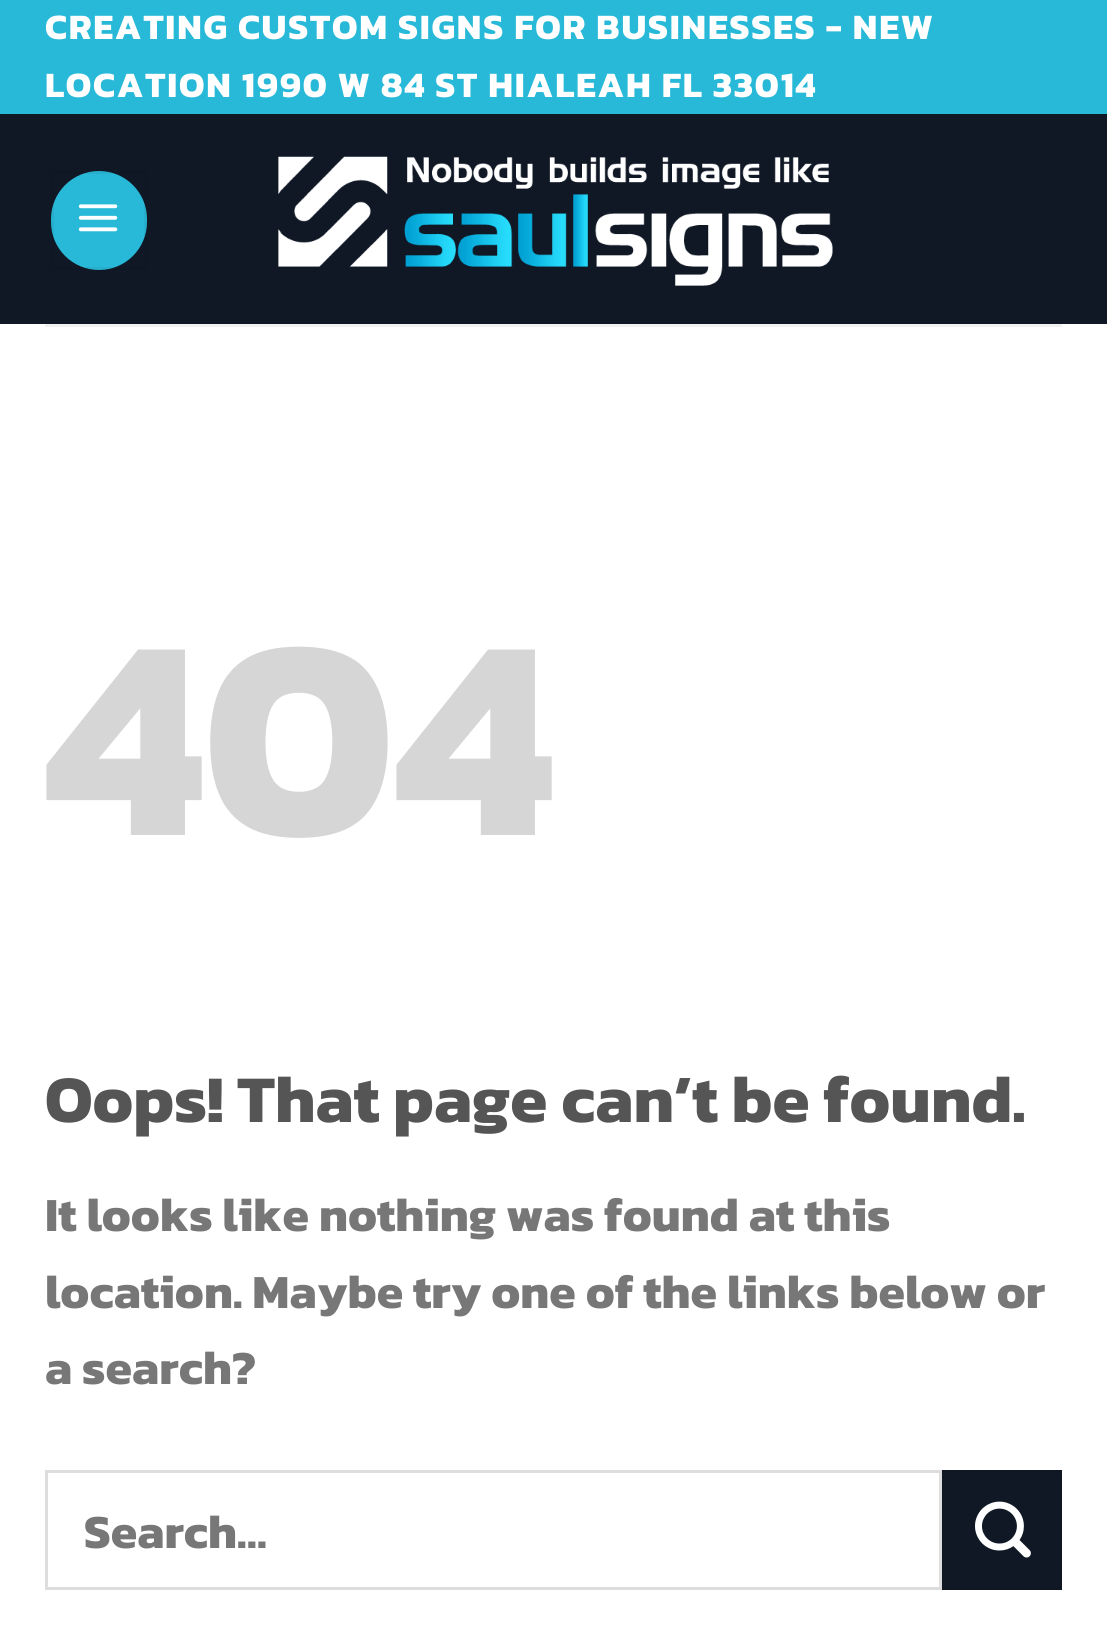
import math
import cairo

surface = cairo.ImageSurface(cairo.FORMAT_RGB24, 1107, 1627)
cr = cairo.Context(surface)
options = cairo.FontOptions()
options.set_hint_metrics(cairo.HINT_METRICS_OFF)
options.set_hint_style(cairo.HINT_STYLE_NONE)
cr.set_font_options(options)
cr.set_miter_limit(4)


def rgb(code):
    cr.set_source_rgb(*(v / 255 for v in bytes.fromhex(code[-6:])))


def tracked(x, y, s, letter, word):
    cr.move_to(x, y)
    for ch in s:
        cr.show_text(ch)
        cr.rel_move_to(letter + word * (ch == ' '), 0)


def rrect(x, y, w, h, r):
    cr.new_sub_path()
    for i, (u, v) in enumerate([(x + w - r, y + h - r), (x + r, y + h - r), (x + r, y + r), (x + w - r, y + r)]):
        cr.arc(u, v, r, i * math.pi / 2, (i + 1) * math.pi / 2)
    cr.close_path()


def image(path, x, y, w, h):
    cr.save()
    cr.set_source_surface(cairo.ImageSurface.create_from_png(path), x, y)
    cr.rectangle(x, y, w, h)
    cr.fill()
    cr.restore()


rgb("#ffffff")
cr.paint()
rgb("#28b9d8")
cr.rectangle(0, 0, 1107, 114)
cr.fill()
rgb("#101826")
cr.rectangle(0, 114, 1107, 210)
cr.fill()
rgb("#28b9d8")
rrect(51, 171, 96, 99, 48)
cr.fill()
cr.rectangle(52.5, 172.5, 93, 96)
cr.set_source_rgba(0, 0, 0, 0.05)
cr.set_line_width(3)
cr.stroke()
image("img/1.png", 78, 204, 40, 28)
image("img/2.png", 278, 156, 555, 130)
rgb("#f1f1f1")
cr.rectangle(45, 324, 1017, 3)
cr.fill()
cr.rectangle(46.5, 1471.5, 894, 117)
rgb("#dddddd")
cr.stroke()
rgb("#101826")
cr.rectangle(943.5, 1471.5, 117, 117)
cr.fill_preserve()
rgb("#0f1724")
cr.stroke()
image("img/3.png", 975, 1501, 56, 57)
cr.select_font_face("Kanit", cairo.FONT_SLANT_NORMAL, cairo.FONT_WEIGHT_BOLD)
cr.set_font_size(36)
rgb("#ffffff")
tracked(45, 39, "CREATING CUSTOM SIGNS FOR BUSINESSES - NEW", 1.8, 0)
tracked(45, 97, "LOCATION 1990 W 84 ST HIALEAH FL 33014", 1.8, 0)
cr.set_font_size(288)
rgb("#d6d6d6")
cr.move_to(45, 835)
cr.show_text("404")
cr.set_font_size(67.25)
rgb("#555555")
cr.move_to(45, 1122)
cr.show_text("Oops! That page can’t be found.")
cr.set_font_size(48)
rgb("#777777")
for x, y, s in [
    (45, 1231, "It looks like nothing was found at this"),
    (45, 1308, "location. Maybe try one of the links below or"),
    (45, 1384, "a search?"),
    (84, 1548, "Search…"),
]:
    cr.move_to(x, y)
    cr.show_text(s)
surface.write_to_png("page.png")
